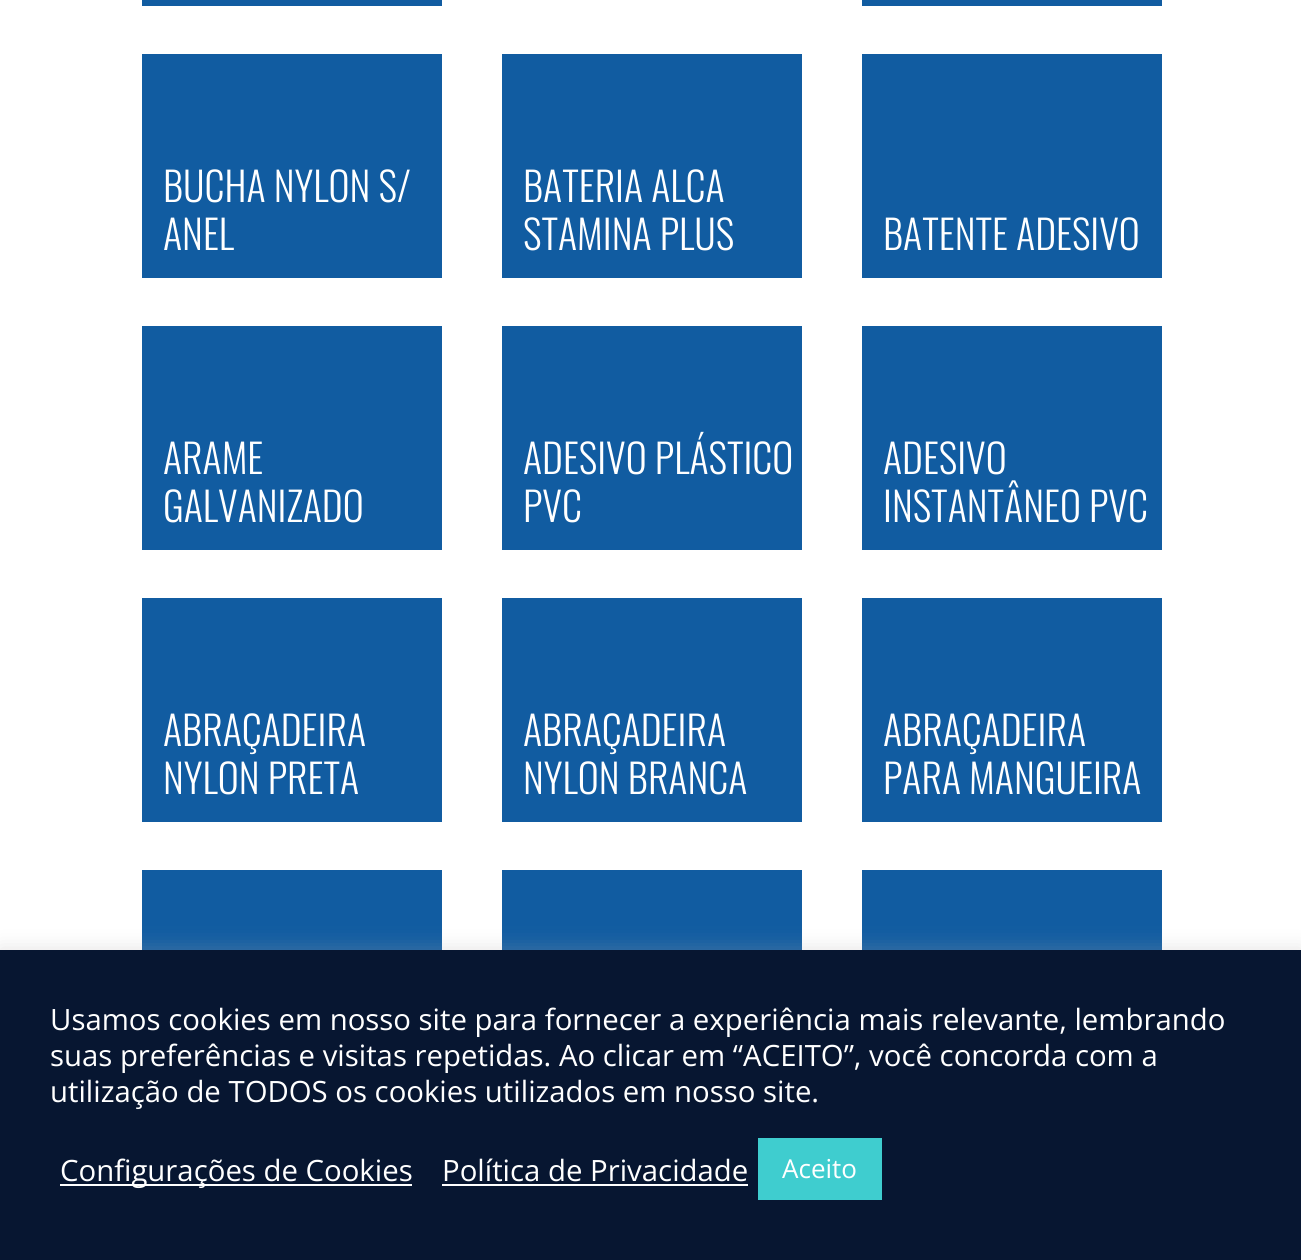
import math
import cairo

surface = cairo.ImageSurface(cairo.FORMAT_RGB24, 1301, 1260)
cr = cairo.Context(surface)
options = cairo.FontOptions()
options.set_hint_metrics(cairo.HINT_METRICS_OFF)
options.set_hint_style(cairo.HINT_STYLE_NONE)
cr.set_font_options(options)
cr.set_miter_limit(4)


def rgb(code):
    cr.set_source_rgb(*(v / 255 for v in bytes.fromhex(code[-6:])))


def rrect(x, y, w, h, r):
    cr.new_sub_path()
    for i, (u, v) in enumerate([(x + w - r, y + h - r), (x + r, y + h - r), (x + r, y + r), (x + w - r, y + r)]):
        cr.arc(u, v, r, i * math.pi / 2, (i + 1) * math.pi / 2)
    cr.close_path()


def soft_shadow(x, y, w, h, r, blur, alpha):
    cr.push_group_with_content(cairo.CONTENT_ALPHA)
    cr.set_operator(cairo.OPERATOR_SOURCE)
    for i in range(15, -16, -2):
        e = blur * i / 6
        if min(w, h) + 2 * e > 0:
            cr.set_source_rgba(0, 0, 0, alpha * math.erfc((i - 1) / 8.5) / 2)
            rrect(x - e, y - e, w + 2 * e, h + 2 * e, max(0, min(r + e + blur * .6, min(w, h) / 2 + e)))
            cr.fill()
    cr.mask(cr.pop_group())


rgb("#ffffff")
cr.paint()
for x, y, w, h, color in [
    (142, 0, 300, 6, "#115ca1"),
    (862, 0, 300, 6, "#115ca1"),
    (142, 54, 300, 224, "#115ca1"),
    (502, 54, 300, 224, "#115ca1"),
    (862, 54, 300, 224, "#115ca1"),
    (142, 326, 300, 224, "#115ca1"),
    (502, 326, 300, 224, "#115ca1"),
    (862, 326, 300, 224, "#115ca1"),
    (142, 598, 300, 224, "#115ca1"),
    (502, 598, 300, 224, "#115ca1"),
    (862, 598, 300, 224, "#115ca1"),
    (142, 870, 300, 80, "#115ca1"),
    (502, 870, 300, 80, "#115ca1"),
    (862, 870, 300, 80, "#115ca1"),
]:
    rgb(color)
    cr.rectangle(x, y, w, h)
    cr.fill()
rgb("#acabab")
soft_shadow(0, 948, 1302, 310, 0, 10, 0.3)
for x, y, w, h, color in [
    (0, 950, 1301, 310, "#071631"),
    (60, 1184, 352, 2, "#ffffff"),
    (442, 1184, 306, 2, "#ffffff"),
    (758, 1138, 124, 62, "#3fcdcf"),
]:
    rgb(color)
    cr.rectangle(x, y, w, h)
    cr.fill()
cr.select_font_face("Oswald Light")
cr.set_font_size(40)
rgb("#ffffff")
for x, y, s in [
    (163, 202, "BUCHA NYLON S/"),
    (163, 250, "ANEL"),
    (523, 202, "BATERIA ALCA"),
    (523, 250, "STAMINA PLUS"),
    (883, 250, "BATENTE ADESIVO"),
    (163, 474, "ARAME"),
    (163, 522, "GALVANIZADO"),
    (523, 474, "ADESIVO PLÁSTICO"),
    (523, 522, "PVC"),
    (883, 474, "ADESIVO"),
    (883, 522, "INSTANTÂNEO PVC"),
    (163, 746, "ABRAÇADEIRA"),
    (163, 794, "NYLON PRETA"),
    (523, 746, "ABRAÇADEIRA"),
    (523, 794, "NYLON BRANCA"),
    (883, 746, "ABRAÇADEIRA"),
    (883, 794, "PARA MANGUEIRA"),
]:
    cr.move_to(x, y)
    cr.show_text(s)
cr.select_font_face("Open Sans")
cr.set_font_size(29.35)
for x, y, s in [
    (50, 1030, "Usamos cookies em nosso site para fornecer a experiência mais relevante, lembrando"),
    (50, 1066, "suas preferências e visitas repetidas. Ao clicar em “ACEITO”, você concorda com a"),
    (50, 1102, "utilização de TODOS os cookies utilizados em nosso site."),
    (60, 1181, "Configurações de Cookies"),
    (442, 1181, "Política de Privacidade"),
]:
    cr.move_to(x, y)
    cr.show_text(s)
cr.set_font_size(26)
cr.move_to(782, 1178)
cr.show_text("Aceito")
surface.write_to_png("page.png")
